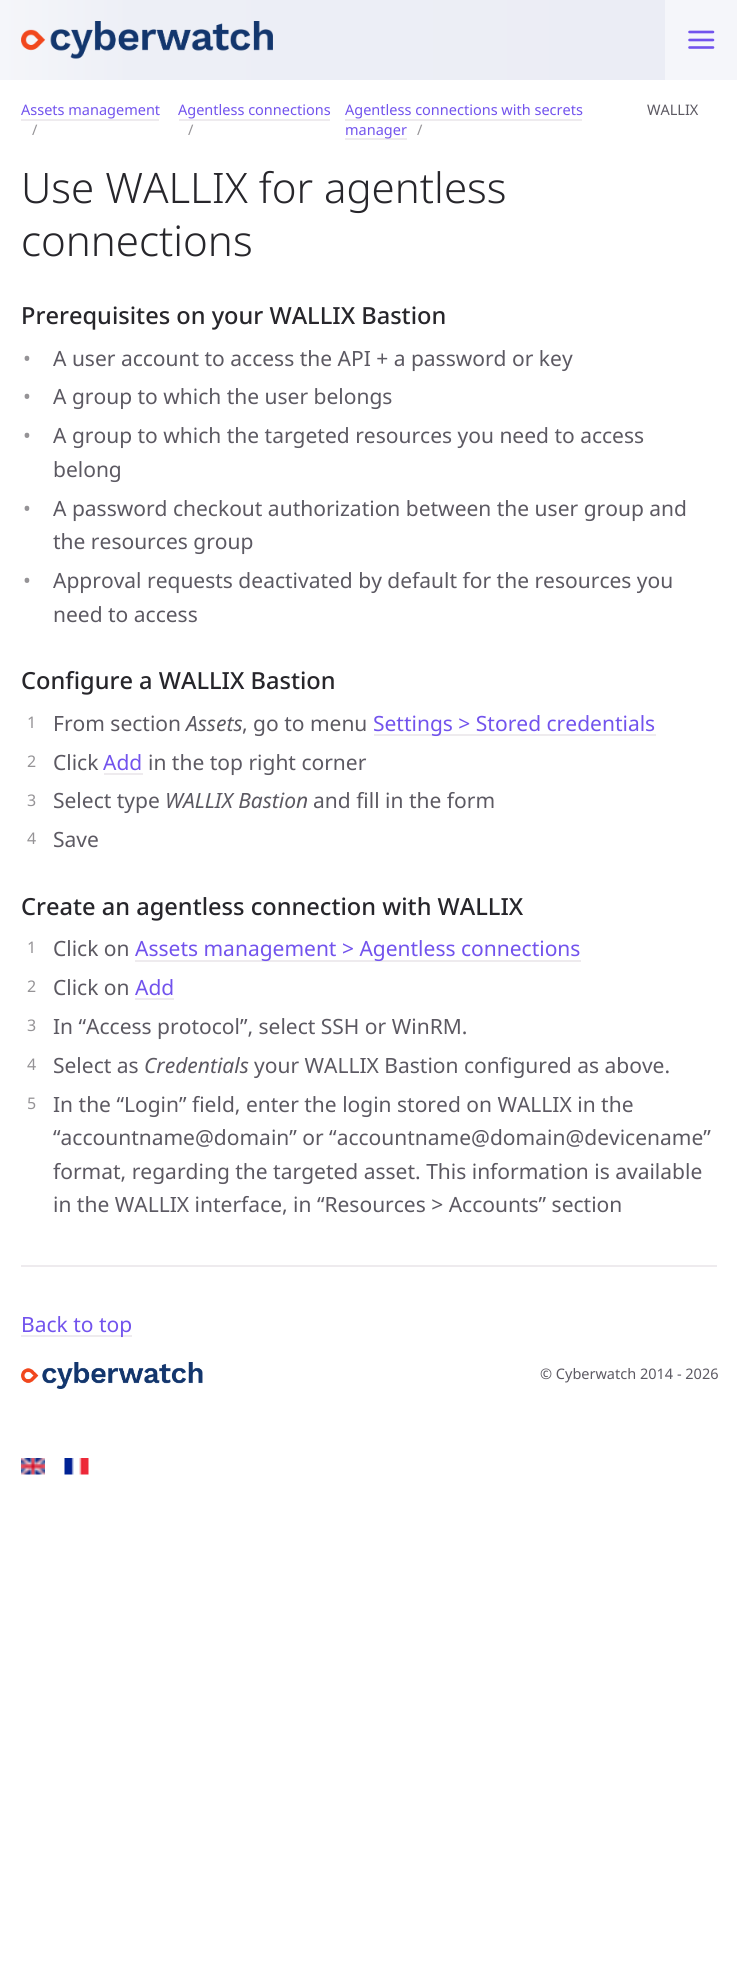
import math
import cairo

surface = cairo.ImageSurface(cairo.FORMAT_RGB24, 737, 1983)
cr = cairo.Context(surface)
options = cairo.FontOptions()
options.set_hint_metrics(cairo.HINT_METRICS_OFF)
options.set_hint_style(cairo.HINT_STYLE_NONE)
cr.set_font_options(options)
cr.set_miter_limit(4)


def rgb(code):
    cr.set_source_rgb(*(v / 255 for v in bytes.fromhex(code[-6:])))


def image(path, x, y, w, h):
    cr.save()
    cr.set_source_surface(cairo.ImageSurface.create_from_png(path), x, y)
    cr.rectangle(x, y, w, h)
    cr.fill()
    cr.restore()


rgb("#ffffff")
cr.paint()
rgb("#f5f6fa")
cr.rectangle(665, 0, 72, 80)
cr.fill()
gradient = cairo.LinearGradient(665, 40, 0, 40)
gradient.add_color_stop_rgba(0, 0.922, 0.929, 0.961, 1)
gradient.add_color_stop_rgba(0.8, 0.929, 0.937, 0.965, 1)
gradient.add_color_stop_rgba(1, 0.961, 0.965, 0.98, 1)
cr.set_source(gradient)
cr.rectangle(0, 0, 665, 80)
cr.fill()
image("img/1.png", 21, 21, 252, 38)
cr.new_path()
cr.move_to(689.5, 40)
cr.line_to(713, 40)
cr.move_to(689.5, 32)
cr.line_to(713, 32)
cr.move_to(689.5, 47.5)
cr.line_to(713, 47.5)
rgb("#7253ed")
cr.set_line_width(2.6)
cr.set_line_cap(cairo.LINE_CAP_ROUND)
cr.set_line_join(cairo.LINE_JOIN_ROUND)
cr.stroke()
image("img/2.png", 21, 1458, 24, 17)
image("img/3.png", 64, 1458, 25, 17)
for x, y, w, h, color in [
    (21, 119, 138, 2, "#eeebee"),
    (179, 119, 151, 2, "#eeebee"),
    (345, 119, 237, 2, "#eeebee"),
    (345, 138, 62, 2, "#eeebee"),
    (374, 734, 282, 2, "#eeebee"),
    (104, 773, 39, 2, "#eeebee"),
    (135, 960, 446, 2, "#eeebee"),
    (135, 998, 39, 2, "#eeebee"),
    (21, 1265, 696, 2, "#eeebee"),
    (21, 1335, 111, 2, "#eeebee"),
]:
    rgb(color)
    cr.rectangle(x, y, w, h)
    cr.fill()
image("img/4.png", 21, 1362, 182, 27)
cr.select_font_face("Noto Sans")
cr.set_font_size(14.5)
rgb("#7253ed")
cr.move_to(21, 115)
cr.show_text("Assets management")
rgb("#959396")
cr.move_to(32, 135)
cr.show_text("/")
rgb("#7253ed")
cr.move_to(178, 115)
cr.show_text("Agentless connections")
rgb("#959396")
cr.move_to(188, 135)
cr.show_text("/")
rgb("#7253ed")
cr.move_to(345, 115)
cr.show_text("Agentless connections with secrets")
cr.move_to(345, 135)
cr.show_text("manager")
rgb("#959396")
cr.move_to(417, 135)
cr.show_text("/")
rgb("#5c5962")
cr.move_to(647, 115)
cr.show_text("WALLIX")
cr.select_font_face("Noto Sans Light")
cr.set_font_size(42)
rgb("#27262b")
cr.move_to(21, 203)
cr.show_text("Use WALLIX for agentless")
cr.move_to(21, 256)
cr.show_text("connections")
cr.select_font_face("Noto Sans Medium")
cr.set_font_size(23.6)
cr.move_to(21, 324)
cr.show_text("Prerequisites on your WALLIX Bastion")
cr.select_font_face("Noto Sans")
cr.set_font_size(21)
rgb("#959396")
cr.move_to(23, 366)
cr.show_text("•")
rgb("#5c5962")
cr.move_to(53, 366)
cr.show_text("A user account to access the API + a password or key")
rgb("#959396")
cr.move_to(23, 404)
cr.show_text("•")
rgb("#5c5962")
cr.move_to(53, 404)
cr.show_text("A group to which the user belongs")
rgb("#959396")
cr.move_to(23, 443)
cr.show_text("•")
rgb("#5c5962")
cr.move_to(53, 443)
cr.show_text("A group to which the targeted resources you need to access")
cr.move_to(53, 477)
cr.show_text("belong")
rgb("#959396")
cr.move_to(23, 516)
cr.show_text("•")
rgb("#5c5962")
cr.move_to(53, 516)
cr.show_text("A password checkout authorization between the user group and")
cr.move_to(53, 549)
cr.show_text("the resources group")
rgb("#959396")
cr.move_to(23, 588)
cr.show_text("•")
rgb("#5c5962")
cr.move_to(53, 588)
cr.show_text("Approval requests deactivated by default for the resources you")
cr.move_to(53, 622)
cr.show_text("need to access")
cr.select_font_face("Noto Sans Medium")
cr.set_font_size(23.6)
rgb("#27262b")
cr.move_to(21, 689)
cr.show_text("Configure a WALLIX Bastion")
cr.select_font_face("Noto Sans")
cr.set_font_size(16)
rgb("#959396")
cr.move_to(27, 728)
cr.show_text("1")
cr.set_font_size(21)
rgb("#5c5962")
cr.move_to(53, 731)
cr.show_text("From section")
cr.select_font_face("Noto Sans", cairo.FONT_SLANT_ITALIC)
cr.move_to(186, 731)
cr.show_text("Assets")
cr.select_font_face("Noto Sans")
cr.move_to(242, 731)
cr.show_text(", go to menu")
rgb("#7253ed")
cr.move_to(373, 731)
cr.show_text("Settings > Stored credentials")
cr.set_font_size(16)
rgb("#959396")
cr.move_to(27, 767)
cr.show_text("2")
cr.set_font_size(21)
rgb("#5c5962")
cr.move_to(53, 770)
cr.show_text("Click")
rgb("#7253ed")
cr.move_to(103, 770)
cr.show_text("Add")
rgb("#5c5962")
cr.move_to(148, 770)
cr.show_text("in the top right corner")
cr.set_font_size(16)
rgb("#959396")
cr.move_to(27, 806)
cr.show_text("3")
cr.set_font_size(21)
rgb("#5c5962")
cr.move_to(53, 808)
cr.show_text("Select type")
cr.select_font_face("Noto Sans", cairo.FONT_SLANT_ITALIC)
cr.move_to(165, 808)
cr.show_text("WALLIX Bastion")
cr.select_font_face("Noto Sans")
cr.move_to(313, 808)
cr.show_text("and fill in the form")
cr.set_font_size(16)
rgb("#959396")
cr.move_to(27, 844)
cr.show_text("4")
cr.set_font_size(21)
rgb("#5c5962")
cr.move_to(53, 847)
cr.show_text("Save")
cr.select_font_face("Noto Sans Medium")
cr.set_font_size(23.6)
rgb("#27262b")
cr.move_to(21, 915)
cr.show_text("Create an agentless connection with WALLIX")
cr.select_font_face("Noto Sans")
cr.set_font_size(16)
rgb("#959396")
cr.move_to(27, 953)
cr.show_text("1")
cr.set_font_size(21)
rgb("#5c5962")
cr.move_to(53, 956)
cr.show_text("Click on")
rgb("#7253ed")
cr.move_to(135, 956)
cr.show_text("Assets management > Agentless connections")
cr.set_font_size(16)
rgb("#959396")
cr.move_to(27, 992)
cr.show_text("2")
cr.set_font_size(21)
rgb("#5c5962")
cr.move_to(53, 995)
cr.show_text("Click on")
rgb("#7253ed")
cr.move_to(135, 995)
cr.show_text("Add")
cr.set_font_size(16)
rgb("#959396")
cr.move_to(27, 1031)
cr.show_text("3")
cr.set_font_size(21)
rgb("#5c5962")
cr.move_to(53, 1034)
cr.show_text("In “Access protocol”, select SSH or WinRM.")
cr.set_font_size(16)
rgb("#959396")
cr.move_to(27, 1070)
cr.show_text("4")
cr.set_font_size(21)
rgb("#5c5962")
cr.move_to(53, 1073)
cr.show_text("Select as")
cr.select_font_face("Noto Sans", cairo.FONT_SLANT_ITALIC)
cr.move_to(144, 1073)
cr.show_text("Credentials")
cr.select_font_face("Noto Sans")
cr.move_to(254, 1073)
cr.show_text("your WALLIX Bastion configured as above.")
cr.set_font_size(16)
rgb("#959396")
cr.move_to(27, 1109)
cr.show_text("5")
cr.set_font_size(21)
rgb("#5c5962")
for x, y, s in [
    (53, 1112, "In the “Login” field, enter the login stored on WALLIX in the"),
    (53, 1145, "“accountname@domain” or “accountname@domain@devicename”"),
    (53, 1179, "format, regarding the targeted asset. This information is available"),
    (53, 1212, "in the WALLIX interface, in “Resources > Accounts” section"),
]:
    cr.move_to(x, y)
    cr.show_text(s)
rgb("#7253ed")
cr.move_to(21, 1332)
cr.show_text("Back to top")
cr.set_font_size(14.5)
rgb("#5c5962")
cr.move_to(540, 1379)
cr.show_text("© Cyberwatch 2014 - 2026")
surface.write_to_png("page.png")
